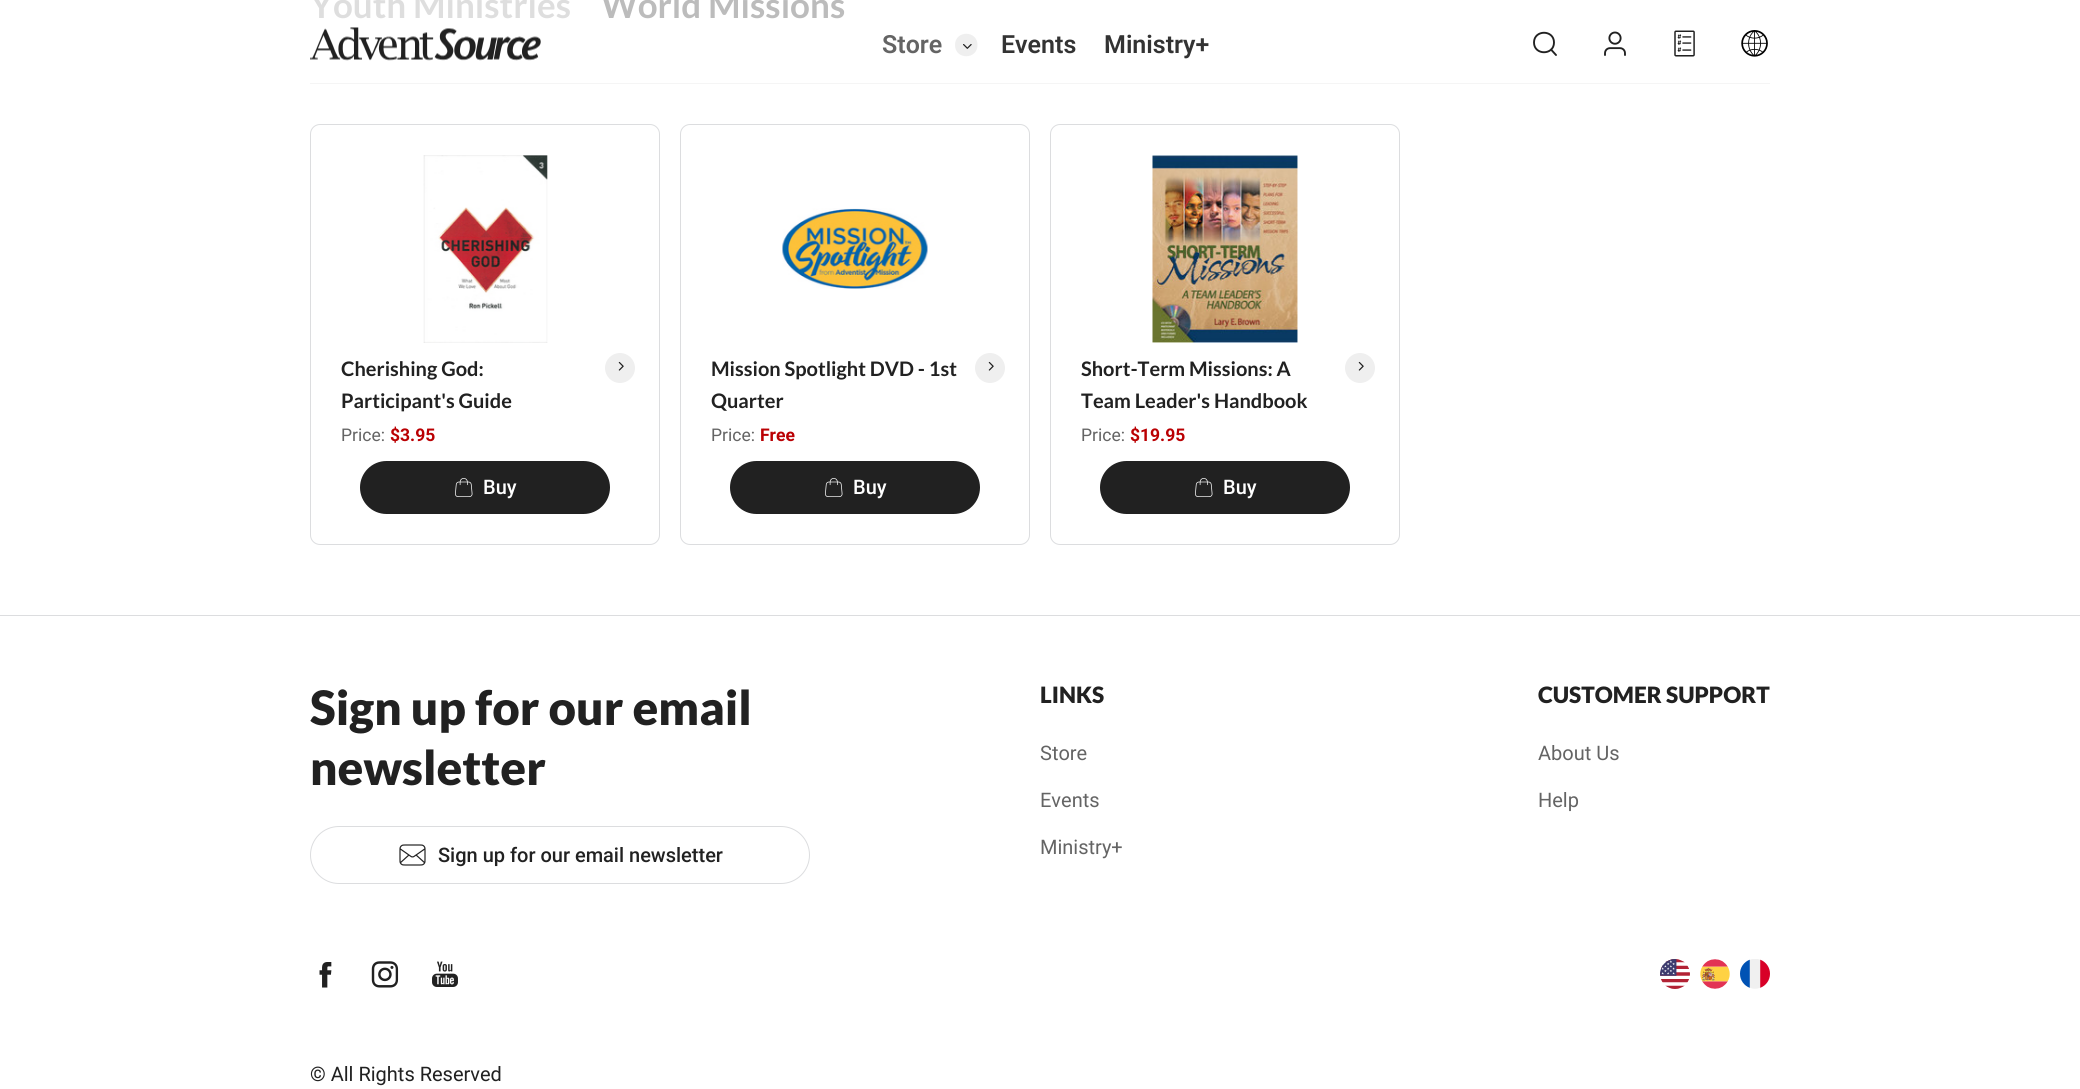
import math
import cairo

surface = cairo.ImageSurface(cairo.FORMAT_RGB24, 2080, 1089)
cr = cairo.Context(surface)
options = cairo.FontOptions()
options.set_hint_metrics(cairo.HINT_METRICS_OFF)
options.set_hint_style(cairo.HINT_STYLE_NONE)
cr.set_font_options(options)
cr.set_miter_limit(4)


def rgb(code):
    cr.set_source_rgb(*(v / 255 for v in bytes.fromhex(code[-6:])))


def rrect(x, y, w, h, r):
    cr.new_sub_path()
    for i, (u, v) in enumerate([(x + w - r, y + h - r), (x + r, y + h - r), (x + r, y + r), (x + w - r, y + r)]):
        cr.arc(u, v, r, i * math.pi / 2, (i + 1) * math.pi / 2)
    cr.close_path()


def image(path, x, y, w, h):
    cr.save()
    cr.set_source_surface(cairo.ImageSurface.create_from_png(path), x, y)
    cr.rectangle(x, y, w, h)
    cr.fill()
    cr.restore()


rgb("#ffffff")
cr.paint()
rgb("#f5f5f5")
cr.rectangle(310, 83, 1460, 1)
cr.fill()
rrect(310.5, 124.5, 349, 420, 9.5)
rgb("#dcdddf")
cr.set_line_width(1)
cr.stroke()
image("img/1.png", 423, 155, 125, 188)
rgb("#efefef")
cr.arc(620, 368, 15, 0, 2 * math.pi)
cr.fill()
image("img/2.png", 618, 361, 6, 10)
rgb("#212121")
rrect(360, 461, 250, 53, 26.5)
cr.fill()
image("img/3.png", 455, 478, 18, 19)
rrect(680.5, 124.5, 349, 420, 9.5)
rgb("#dcdddf")
cr.stroke()
image("img/4.png", 782, 208, 146, 81)
rgb("#efefef")
cr.arc(990, 368, 15, 0, 2 * math.pi)
cr.fill()
image("img/2.png", 988, 361, 6, 10)
rgb("#212121")
rrect(730, 461, 250, 53, 26.5)
cr.fill()
image("img/3.png", 825, 478, 18, 19)
rrect(1050.5, 124.5, 349, 420, 9.5)
rgb("#dcdddf")
cr.stroke()
image("img/5.png", 1152, 155, 146, 188)
rgb("#efefef")
cr.arc(1360, 368, 15, 0, 2 * math.pi)
cr.fill()
image("img/2.png", 1358, 361, 6, 10)
rgb("#212121")
rrect(1100, 461, 250, 53, 26.5)
cr.fill()
image("img/3.png", 1195, 478, 18, 19)
image("img/6.png", 310, 27, 231, 34)
rgb("#efefef")
cr.new_path()
cr.move_to(977.5, 45)
cr.curve_to(977.5, 60, 955, 60, 955, 45)
cr.curve_to(955, 30, 977.5, 30, 977.5, 45)
cr.close_path()
cr.fill()
image("img/7.png", 963, 44, 9, 5)
cr.new_path()
cr.move_to(1556, 55)
cr.line_to(1551, 49.5)
cr.move_to(1554, 42.5)
cr.curve_to(1554, 55.5, 1534, 55.5, 1534, 42.5)
cr.curve_to(1534, 29.5, 1554, 29.5, 1554, 42.5)
cr.close_path()
rgb("#212121")
cr.set_line_width(1.9)
cr.set_line_cap(cairo.LINE_CAP_ROUND)
cr.set_line_join(cairo.LINE_JOIN_ROUND)
cr.stroke()
image("img/8.png", 1604, 31, 22, 25)
image("img/9.png", 1674, 30, 21, 27)
image("img/10.png", 1741, 30, 27, 27)
rgb("#dcdddf")
cr.rectangle(0, 615, 2080, 1)
cr.fill()
rrect(310.5, 826.5, 499, 57, 28.5)
cr.set_line_width(1)
cr.set_line_cap(cairo.LINE_CAP_BUTT)
cr.set_line_join(cairo.LINE_JOIN_MITER)
cr.stroke()
image("img/11.png", 399, 844, 27, 22)
image("img/12.png", 319, 962, 13, 26)
image("img/13.png", 371, 961, 28, 27)
image("img/14.png", 432, 961, 26, 26)
image("img/15.png", 1660, 959, 30, 30)
image("img/16.png", 1700, 959, 30, 30)
image("img/17.png", 1740, 959, 30, 30)
cr.select_font_face("Lato", cairo.FONT_SLANT_NORMAL, cairo.FONT_WEIGHT_BOLD)
cr.set_font_size(35)
rgb("#dedede")
cr.move_to(310, 18)
cr.show_text("Youth Ministries")
rgb("#bcbcbc")
cr.move_to(601, 18)
cr.show_text("World Missions")
cr.set_font_size(20)
rgb("#212121")
cr.move_to(341, 376)
cr.show_text("Cherishing God:")
cr.move_to(341, 408)
cr.show_text("Participant's Guide")
cr.select_font_face("Roboto")
cr.set_font_size(17.5)
rgb("#646464")
cr.move_to(341, 441)
cr.show_text("Price:")
cr.select_font_face("Roboto", cairo.FONT_SLANT_NORMAL, cairo.FONT_WEIGHT_BOLD)
rgb("#ba0003")
cr.move_to(390, 441)
cr.show_text("$3.95")
cr.select_font_face("Roboto Medium")
cr.set_font_size(20)
rgb("#ffffff")
cr.move_to(483, 494)
cr.show_text("Buy")
cr.select_font_face("Lato", cairo.FONT_SLANT_NORMAL, cairo.FONT_WEIGHT_BOLD)
rgb("#212121")
cr.move_to(711, 376)
cr.show_text("Mission Spotlight DVD - 1st")
cr.move_to(711, 408)
cr.show_text("Quarter")
cr.select_font_face("Roboto")
cr.set_font_size(17.5)
rgb("#646464")
cr.move_to(711, 441)
cr.show_text("Price:")
cr.select_font_face("Roboto", cairo.FONT_SLANT_NORMAL, cairo.FONT_WEIGHT_BOLD)
rgb("#ba0003")
cr.move_to(760, 441)
cr.show_text("Free")
cr.select_font_face("Roboto Medium")
cr.set_font_size(20)
rgb("#ffffff")
cr.move_to(853, 494)
cr.show_text("Buy")
cr.select_font_face("Lato", cairo.FONT_SLANT_NORMAL, cairo.FONT_WEIGHT_BOLD)
rgb("#212121")
cr.move_to(1081, 376)
cr.show_text("Short-Term Missions: A")
cr.move_to(1081, 408)
cr.show_text("Team Leader's Handbook")
cr.select_font_face("Roboto")
cr.set_font_size(17.5)
rgb("#646464")
cr.move_to(1081, 441)
cr.show_text("Price:")
cr.select_font_face("Roboto", cairo.FONT_SLANT_NORMAL, cairo.FONT_WEIGHT_BOLD)
rgb("#ba0003")
cr.move_to(1130, 441)
cr.show_text("$19.95")
cr.select_font_face("Roboto Medium")
cr.set_font_size(20)
rgb("#ffffff")
cr.move_to(1223, 494)
cr.show_text("Buy")
cr.select_font_face("Roboto SemiBold")
cr.set_font_size(25)
rgb("#646464")
cr.move_to(882, 53)
cr.show_text("Store")
rgb("#333333")
cr.move_to(1001, 53)
cr.show_text("Events")
cr.move_to(1104, 53)
cr.show_text("Ministry+")
cr.select_font_face("Lato Black")
cr.set_font_size(47.5)
rgb("#212121")
cr.move_to(310, 725)
cr.show_text("Sign up for our email")
cr.move_to(310, 785)
cr.show_text("newsletter")
cr.select_font_face("Roboto Medium")
cr.set_font_size(20)
cr.move_to(438, 862)
cr.show_text("Sign up for our email newsletter")
cr.select_font_face("Lato Black")
cr.set_font_size(22.5)
cr.move_to(1040, 703)
cr.show_text("LINKS")
cr.select_font_face("Roboto")
cr.set_font_size(20)
rgb("#646464")
for x, y, s in [
    (1040, 760, "Store"),
    (1040, 807, "Events"),
    (1040, 854, "Ministry+"),
]:
    cr.move_to(x, y)
    cr.show_text(s)
cr.select_font_face("Lato Black")
cr.set_font_size(22.5)
rgb("#212121")
cr.move_to(1538, 703)
cr.show_text("CUSTOMER SUPPORT")
cr.select_font_face("Roboto")
cr.set_font_size(20)
rgb("#646464")
cr.move_to(1538, 760)
cr.show_text("About Us")
cr.move_to(1538, 807)
cr.show_text("Help")
rgb("#212121")
cr.move_to(310, 1081)
cr.show_text("© All Rights Reserved")
surface.write_to_png("page.png")
